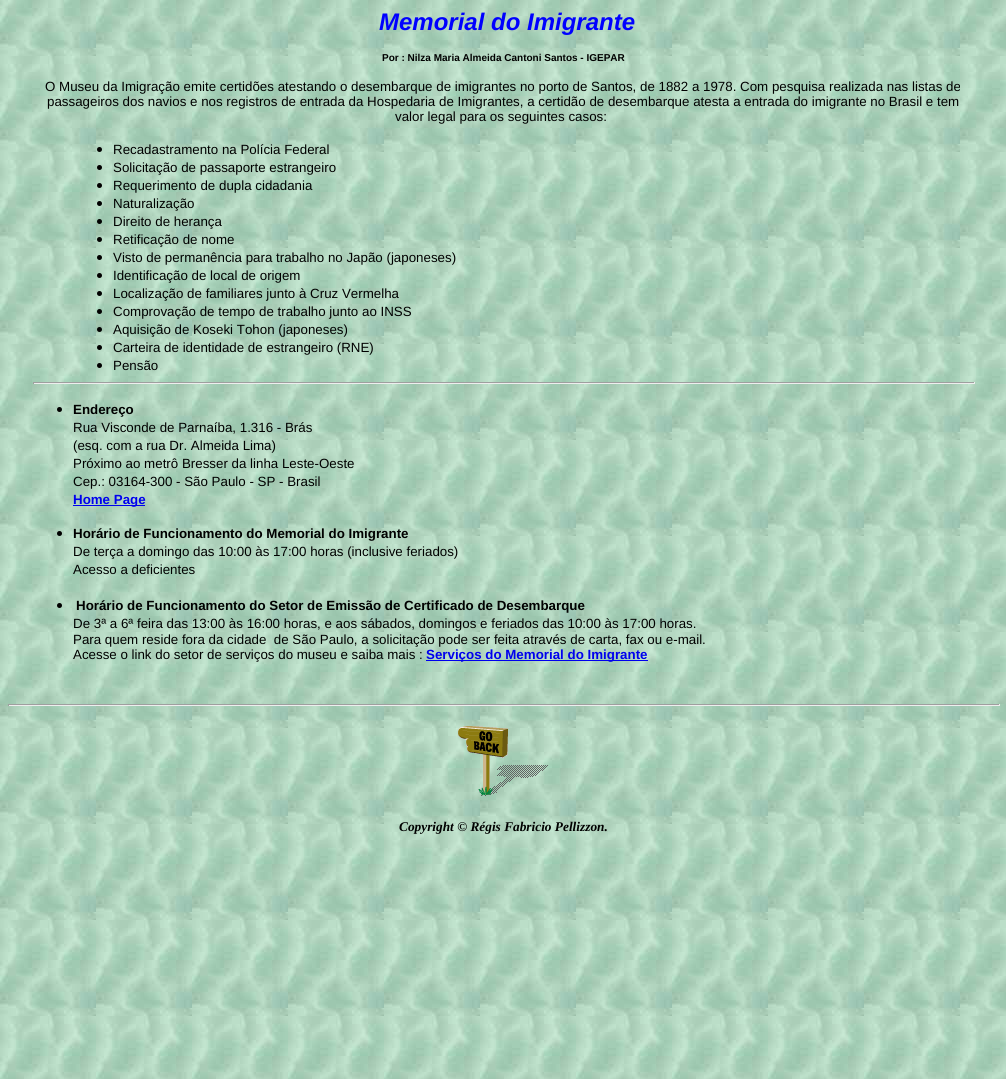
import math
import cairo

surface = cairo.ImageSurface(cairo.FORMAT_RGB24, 1006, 1079)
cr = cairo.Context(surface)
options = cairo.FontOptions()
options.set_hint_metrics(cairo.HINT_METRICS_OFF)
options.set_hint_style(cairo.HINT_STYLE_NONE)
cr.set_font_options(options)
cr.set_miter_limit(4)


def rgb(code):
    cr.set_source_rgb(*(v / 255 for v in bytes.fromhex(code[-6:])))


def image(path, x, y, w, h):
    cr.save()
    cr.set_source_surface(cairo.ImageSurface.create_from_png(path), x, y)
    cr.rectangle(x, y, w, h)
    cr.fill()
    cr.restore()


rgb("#ffffff")
cr.paint()
image("img/1.png", 0, 0, 1006, 1079)
rgb("#000000")
cr.arc(99.5, 149.5, 2.5, 0, 2 * math.pi)
cr.fill()
cr.arc(99.5, 167.5, 2.5, 0, 2 * math.pi)
cr.fill()
cr.arc(99.5, 185.5, 2.5, 0, 2 * math.pi)
cr.fill()
cr.arc(99.5, 203.5, 2.5, 0, 2 * math.pi)
cr.fill()
cr.arc(99.5, 221.5, 2.5, 0, 2 * math.pi)
cr.fill()
cr.arc(99.5, 239.5, 2.5, 0, 2 * math.pi)
cr.fill()
cr.arc(99.5, 257.5, 2.5, 0, 2 * math.pi)
cr.fill()
cr.arc(99.5, 275.5, 2.5, 0, 2 * math.pi)
cr.fill()
cr.arc(99.5, 293.5, 2.5, 0, 2 * math.pi)
cr.fill()
cr.arc(99.5, 311.5, 2.5, 0, 2 * math.pi)
cr.fill()
cr.arc(99.5, 329.5, 2.5, 0, 2 * math.pi)
cr.fill()
cr.arc(99.5, 347.5, 2.5, 0, 2 * math.pi)
cr.fill()
cr.arc(99.5, 365.5, 2.5, 0, 2 * math.pi)
cr.fill()
for x, y, w, h, color in [
    (33, 382, 942, 1, "#9f9f9f"),
    (974, 382, 1, 2, "#eeeeee"),
    (33, 383, 942, 1, "#eeeeee"),
    (33, 382, 1, 2, "#9f9f9f"),
]:
    rgb(color)
    cr.rectangle(x, y, w, h)
    cr.fill()
rgb("#000000")
cr.arc(59.5, 409.5, 2.5, 0, 2 * math.pi)
cr.fill()
rgb("#0000ee")
cr.rectangle(73, 505, 72, 1)
cr.fill()
rgb("#000000")
cr.arc(59.5, 533.5, 2.5, 0, 2 * math.pi)
cr.fill()
cr.arc(59.5, 605.5, 2.5, 0, 2 * math.pi)
cr.fill()
for x, y, w, h, color in [
    (426, 660, 222, 1, "#0000ee"),
    (8, 704, 992, 1, "#9f9f9f"),
    (999, 704, 1, 2, "#eeeeee"),
    (8, 705, 992, 1, "#eeeeee"),
    (8, 704, 1, 2, "#9f9f9f"),
]:
    rgb(color)
    cr.rectangle(x, y, w, h)
    cr.fill()
image("img/2.png", 458, 726, 90, 70)
cr.select_font_face("Liberation Sans", cairo.FONT_SLANT_ITALIC, cairo.FONT_WEIGHT_BOLD)
cr.set_font_size(24)
rgb("#0000ff")
cr.move_to(379, 30)
cr.show_text("Memorial do Imigrante")
cr.select_font_face("Liberation Sans", cairo.FONT_SLANT_NORMAL, cairo.FONT_WEIGHT_BOLD)
cr.set_font_size(10)
rgb("#000000")
cr.move_to(382, 61)
cr.show_text("Por : Nilza Maria Almeida Cantoni Santos - IGEPAR")
cr.select_font_face("Liberation Sans")
cr.set_font_size(13.33)
for x, y, s in [
    (45, 91, "O Museu da Imigração emite certidões atestando o desembarque de imigrantes no porto de Santos, de 1882 a 1978. Com pesquisa realizada nas listas de"),
    (47, 106, "passageiros dos navios e nos registros de entrada da Hospedaria de Imigrantes, a certidão de desembarque atesta a entrada do imigrante no Brasil e tem"),
    (395, 121, "valor legal para os seguintes casos:"),
    (113, 154, "Recadastramento na Polícia Federal"),
    (113, 172, "Solicitação de passaporte estrangeiro"),
    (113, 190, "Requerimento de dupla cidadania"),
    (113, 208, "Naturalização"),
    (113, 226, "Direito de herança"),
    (113, 244, "Retificação de nome"),
    (113, 262, "Visto de permanência para trabalho no Japão (japoneses)"),
    (113, 280, "Identificação de local de origem"),
    (113, 298, "Localização de familiares junto à Cruz Vermelha"),
    (113, 316, "Comprovação de tempo de trabalho junto ao INSS"),
    (113, 334, "Aquisição de Koseki Tohon (japoneses)"),
    (113, 352, "Carteira de identidade de estrangeiro (RNE)"),
    (113, 370, "Pensão"),
]:
    cr.move_to(x, y)
    cr.show_text(s)
cr.select_font_face("Liberation Sans", cairo.FONT_SLANT_NORMAL, cairo.FONT_WEIGHT_BOLD)
cr.move_to(73, 414)
cr.show_text("Endereço")
cr.select_font_face("Liberation Sans")
for x, y, s in [
    (73, 432, "Rua Visconde de Parnaíba, 1.316 - Brás"),
    (73, 450, "(esq. com a rua Dr. Almeida Lima)"),
    (73, 468, "Próximo ao metrô Bresser da linha Leste-Oeste"),
    (73, 486, "Cep.: 03164-300 - São Paulo - SP - Brasil"),
]:
    cr.move_to(x, y)
    cr.show_text(s)
cr.select_font_face("Liberation Sans", cairo.FONT_SLANT_NORMAL, cairo.FONT_WEIGHT_BOLD)
rgb("#0000ee")
cr.move_to(73, 504)
cr.show_text("Home Page")
rgb("#000000")
cr.move_to(73, 538)
cr.show_text("Horário de Funcionamento do Memorial do Imigrante")
cr.select_font_face("Liberation Sans")
cr.move_to(73, 556)
cr.show_text("De terça a domingo das 10:00 às 17:00 horas (inclusive feriados)")
cr.move_to(73, 574)
cr.show_text("Acesso a deficientes")
cr.select_font_face("Liberation Sans", cairo.FONT_SLANT_NORMAL, cairo.FONT_WEIGHT_BOLD)
cr.move_to(76, 610)
cr.show_text("Horário de Funcionamento do Setor de Emissão de Certificado de Desembarque")
cr.select_font_face("Liberation Sans")
for x, y, s in [
    (73, 628, "De 3ª a 6ª feira das 13:00 às 16:00 horas, e aos sábados, domingos e feriados das 10:00 às 17:00 horas."),
    (73, 644, "Para quem reside fora da cidade  de São Paulo, a solicitação pode ser feita através de carta, fax ou e-mail."),
    (73, 659, "Acesse o link do setor de serviços do museu e saiba mais :"),
]:
    cr.move_to(x, y)
    cr.show_text(s)
cr.select_font_face("Liberation Sans", cairo.FONT_SLANT_NORMAL, cairo.FONT_WEIGHT_BOLD)
rgb("#0000ee")
cr.move_to(426, 659)
cr.show_text("Serviços do Memorial do Imigrante")
cr.select_font_face("Liberation Serif", cairo.FONT_SLANT_ITALIC, cairo.FONT_WEIGHT_BOLD)
rgb("#000000")
cr.move_to(399, 831)
cr.show_text("Copyright © Régis Fabricio Pellizzon.")
surface.write_to_png("page.png")
